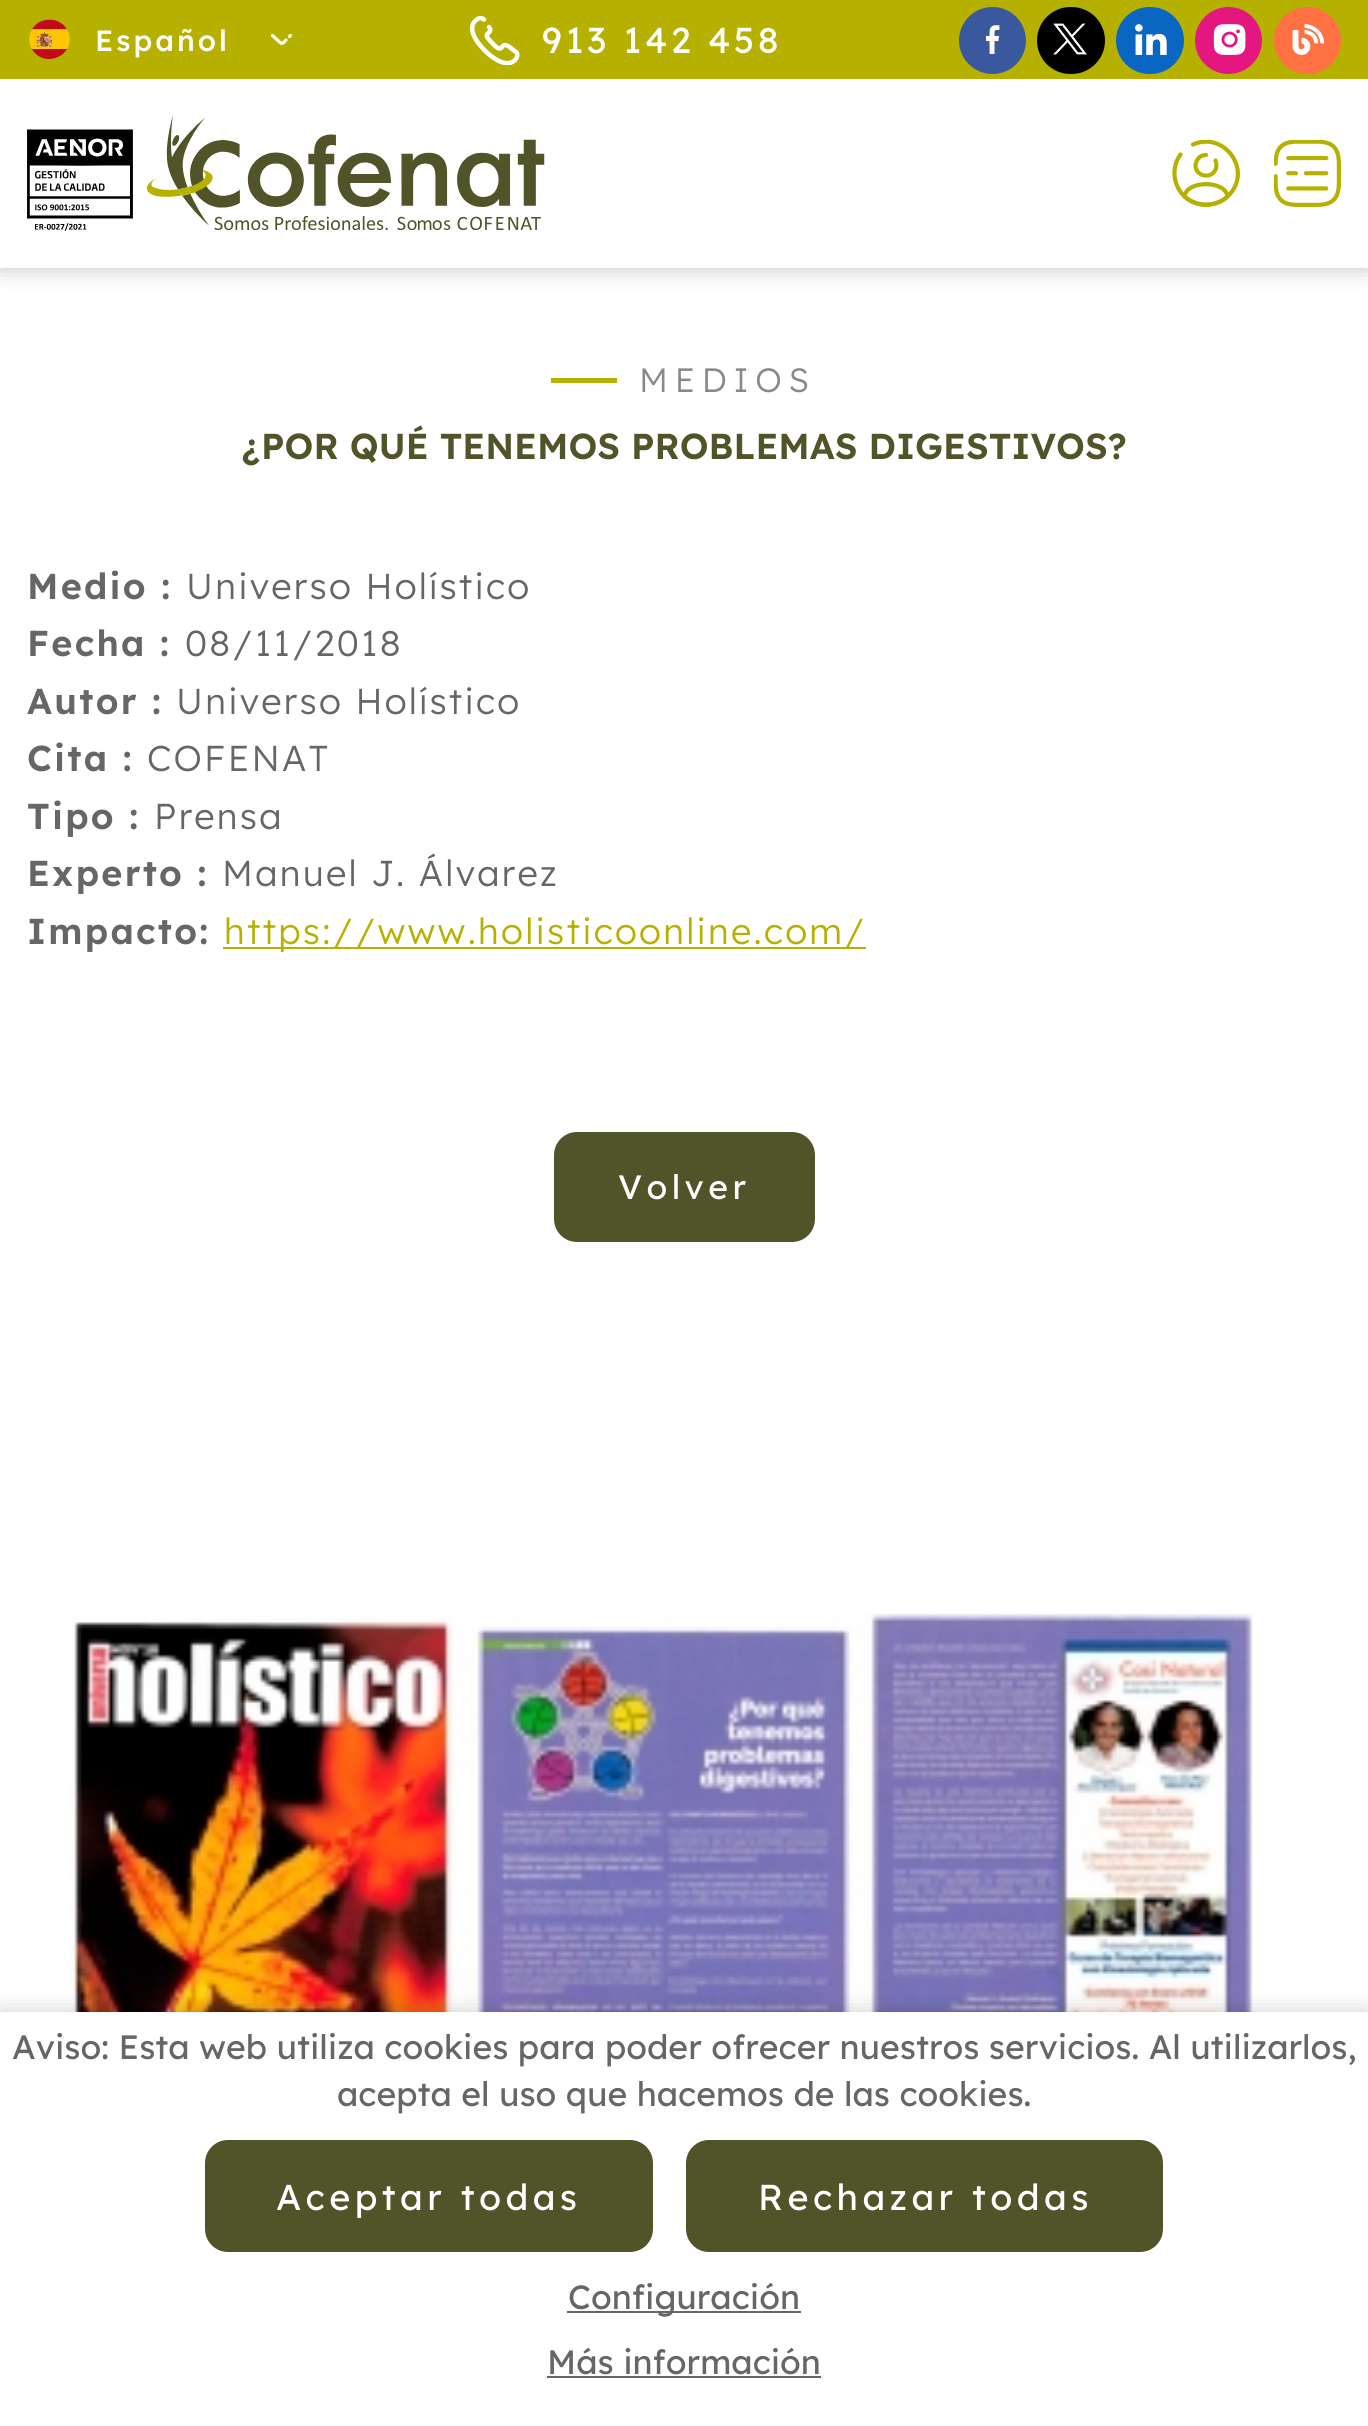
import math
import cairo

surface = cairo.ImageSurface(cairo.FORMAT_RGB24, 1368, 2426)
cr = cairo.Context(surface)
options = cairo.FontOptions()
options.set_hint_metrics(cairo.HINT_METRICS_OFF)
options.set_hint_style(cairo.HINT_STYLE_NONE)
cr.set_font_options(options)
cr.set_miter_limit(4)


def rgb(code):
    cr.set_source_rgb(*(v / 255 for v in bytes.fromhex(code[-6:])))


def tracked(x, y, s, letter, word):
    cr.move_to(x, y)
    for ch in s:
        cr.show_text(ch)
        cr.rel_move_to(letter + word * (ch == ' '), 0)


def rrect(x, y, w, h, r):
    cr.new_sub_path()
    for i, (u, v) in enumerate([(x + w - r, y + h - r), (x + r, y + h - r), (x + r, y + r), (x + w - r, y + r)]):
        cr.arc(u, v, r, i * math.pi / 2, (i + 1) * math.pi / 2)
    cr.close_path()


def soft_shadow(x, y, w, h, r, blur, alpha):
    cr.push_group_with_content(cairo.CONTENT_ALPHA)
    cr.set_operator(cairo.OPERATOR_SOURCE)
    for i in range(15, -16, -2):
        e = blur * i / 6
        if min(w, h) + 2 * e > 0:
            cr.set_source_rgba(0, 0, 0, alpha * math.erfc((i - 1) / 8.5) / 2)
            rrect(x - e, y - e, w + 2 * e, h + 2 * e, max(0, min(r + e + blur * .6, min(w, h) / 2 + e)))
            cr.fill()
    cr.mask(cr.pop_group())


def image(path, x, y, w, h):
    cr.save()
    cr.set_source_surface(cairo.ImageSurface.create_from_png(path), x, y)
    cr.rectangle(x, y, w, h)
    cr.fill()
    cr.restore()


rgb("#ffffff")
cr.paint()
rgb("#000000")
soft_shadow(0, 0, 1368, 268, 0, 11, 0.25)
rgb("#b6b100")
cr.rectangle(0, 0, 1368, 79)
cr.fill()
image("img/1.png", 29, 19, 41, 40)
cr.new_path()
cr.move_to(286, 40)
cr.curve_to(283, 43, 282.5, 45, 279, 41.5)
cr.line_to(272.5, 35.5)
cr.move_to(290.5, 35.5)
cr.line_to(289.5, 36.5)
rgb("#ffffff")
cr.set_line_width(3.2)
cr.set_line_cap(cairo.LINE_CAP_ROUND)
cr.set_line_join(cairo.LINE_JOIN_ROUND)
cr.stroke()
cr.save()
cr.rectangle(470, 16, 50, 49)
cr.clip()
cr.new_path()
cr.move_to(489, 27)
cr.curve_to(494, 34, 482, 32, 489, 39.5)
cr.curve_to(506, 59.5, 498.5, 39, 509.5, 47)
cr.line_to(516.5, 52.5)
cr.curve_to(518.5, 55, 516.5, 58.5, 514.5, 60.5)
cr.curve_to(505, 69, 488.5, 55, 482.5, 48)
cr.curve_to(476.5, 41.5, 468, 30, 474.5, 21.5)
cr.curve_to(476, 20, 478, 18.5, 480, 18)
cr.curve_to(481.5, 18, 483, 18.5, 484, 19.5)
cr.set_line_width(4.5)
cr.stroke()
cr.restore()
rgb("#3a589e")
cr.arc(992.5, 40.5, 33.5, 0, 2 * math.pi)
cr.fill()
image("img/2.png", 986, 25, 14, 29)
rgb("#000000")
rrect(1037, 7, 68, 67, 33.5)
cr.fill()
image("img/3.png", 1053, 23, 34, 32)
rgb("#0a66c3")
rrect(1116, 7, 68, 67, 33.5)
cr.fill()
image("img/4.png", 1135, 24, 32, 31)
rgb("#e41680")
cr.arc(1228.5, 40.5, 33.5, 0, 2 * math.pi)
cr.fill()
image("img/5.png", 1213, 24, 33, 31)
rgb("#ff7043")
cr.arc(1307.5, 40.5, 33.5, 0, 2 * math.pi)
cr.fill()
image("img/6.png", 1292, 24, 33, 31)
rgb("#ffffff")
cr.rectangle(0, 79, 1368, 189)
cr.fill()
image("img/7.png", 27, 115, 518, 116)
cr.new_path()
cr.move_to(1215.5, 160.5)
cr.curve_to(1216.5, 163.5, 1217, 166.5, 1215.5, 169.5)
cr.curve_to(1211.5, 179.5, 1195.5, 176.5, 1195.5, 165.5)
cr.curve_to(1195.5, 163.5, 1196.5, 161.5, 1197.5, 159.5)
cr.curve_to(1199.5, 156.5, 1202.5, 155, 1206, 155)
cr.move_to(1227.5, 196.5)
cr.curve_to(1215.5, 207.5, 1196.5, 207.5, 1184.5, 196.5)
cr.curve_to(1186.5, 180, 1225.5, 180, 1227.5, 196.5)
cr.close_path()
rgb("#b6b100")
cr.set_line_width(4.2)
cr.stroke()
cr.save()
cr.rectangle(1172, 140, 68, 67)
cr.clip()
cr.new_path()
cr.move_to(1180.5, 154.5)
cr.curve_to(1170, 168.5, 1173.5, 189.5, 1188.5, 199.5)
cr.curve_to(1195.5, 204, 1204, 206, 1212.5, 204)
cr.curve_to(1218.5, 203, 1224, 200, 1228.5, 195.5)
cr.curve_to(1253.5, 170.5, 1224, 130.5, 1193, 144.5)
cr.stroke()
cr.restore()
image("img/8.png", 1274, 140, 67, 67)
cr.rectangle(551, 378, 66, 5)
cr.fill()
cr.rectangle(223, 947, 643, 2)
cr.fill()
rgb("#515429")
rrect(554, 1132, 261, 110, 23)
cr.fill()
image("img/9.png", 70, 1613, 1183, 399)
rgb("#000000")
soft_shadow(0, 2012, 1368, 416, 0, 11, 0.2)
rgb("#ffffff")
cr.rectangle(0, 2012, 1368, 414)
cr.fill()
rgb("#515429")
rrect(205, 2140, 448, 112, 23)
cr.fill()
rrect(686, 2140, 477, 112, 23)
cr.fill()
rgb("#666666")
cr.rectangle(567, 2311, 234, 2)
cr.fill()
cr.rectangle(547, 2376, 274, 2)
cr.fill()
cr.select_font_face("Lexend Medium")
cr.set_font_size(29.25)
rgb("#ffffff")
tracked(95, 51, "Español", 3, 0)
cr.select_font_face("Lexend")
cr.set_font_size(36)
tracked(542, 53, "913 142 458", 3.6, 0)
cr.select_font_face("Lexend Light")
cr.set_font_size(33.75)
rgb("#888888")
tracked(639, 392, "MEDIOS", 6.75, 0)
cr.select_font_face("Lexend SemiBold")
cr.set_font_size(36)
rgb("#515429")
cr.move_to(242, 459)
cr.show_text("¿POR QUÉ TENEMOS PROBLEMAS DIGESTIVOS?")
rgb("#666666")
tracked(27, 599, "Medio :", 2.25, 0)
cr.select_font_face("Lexend Light")
tracked(186, 599, "Universo Holístico", 2.25, 0)
cr.select_font_face("Lexend SemiBold")
tracked(27, 656, "Fecha :", 2.25, 0)
cr.select_font_face("Lexend Light")
tracked(185, 656, "08/11/2018", 2.25, 0)
cr.select_font_face("Lexend SemiBold")
tracked(27, 714, "Autor :", 2.25, 0)
cr.select_font_face("Lexend Light")
tracked(176, 714, "Universo Holístico", 2.25, 0)
cr.select_font_face("Lexend SemiBold")
tracked(27, 771, "Cita :", 2.25, 0)
cr.select_font_face("Lexend Light")
tracked(147, 771, "COFENAT", 2.25, 0)
cr.select_font_face("Lexend SemiBold")
tracked(27, 829, "Tipo :", 2.25, 0)
cr.select_font_face("Lexend Light")
tracked(154, 829, "Prensa", 2.25, 0)
cr.select_font_face("Lexend SemiBold")
tracked(27, 886, "Experto :", 2.25, 0)
cr.select_font_face("Lexend Light")
tracked(222, 886, "Manuel J. Álvarez", 2.25, 0)
cr.select_font_face("Lexend SemiBold")
tracked(27, 944, "Impacto:", 2.25, 0)
cr.select_font_face("Lexend Light")
rgb("#b6b100")
tracked(224, 944, "https://www.holisticoonline.com/", 2.25, 0)
cr.select_font_face("Lexend")
cr.set_font_size(33.75)
rgb("#ffffff")
tracked(618, 1199, "Volver", 4.4, 0)
rgb("#666666")
cr.move_to(12, 2059)
cr.show_text("Aviso: Esta web utiliza cookies para poder ofrecer nuestros servicios. Al utilizarlos,")
cr.move_to(337, 2106)
cr.show_text("acepta el uso que hacemos de las cookies.")
cr.set_font_size(36)
rgb("#ffffff")
tracked(276, 2210, "Aceptar todas", 4.4, 0)
tracked(758, 2210, "Rechazar todas", 4.4, 0)
cr.set_font_size(33.75)
rgb("#666666")
cr.move_to(568, 2309)
cr.show_text("Configuración")
cr.move_to(547, 2374)
cr.show_text("Más información")
surface.write_to_png("page.png")
